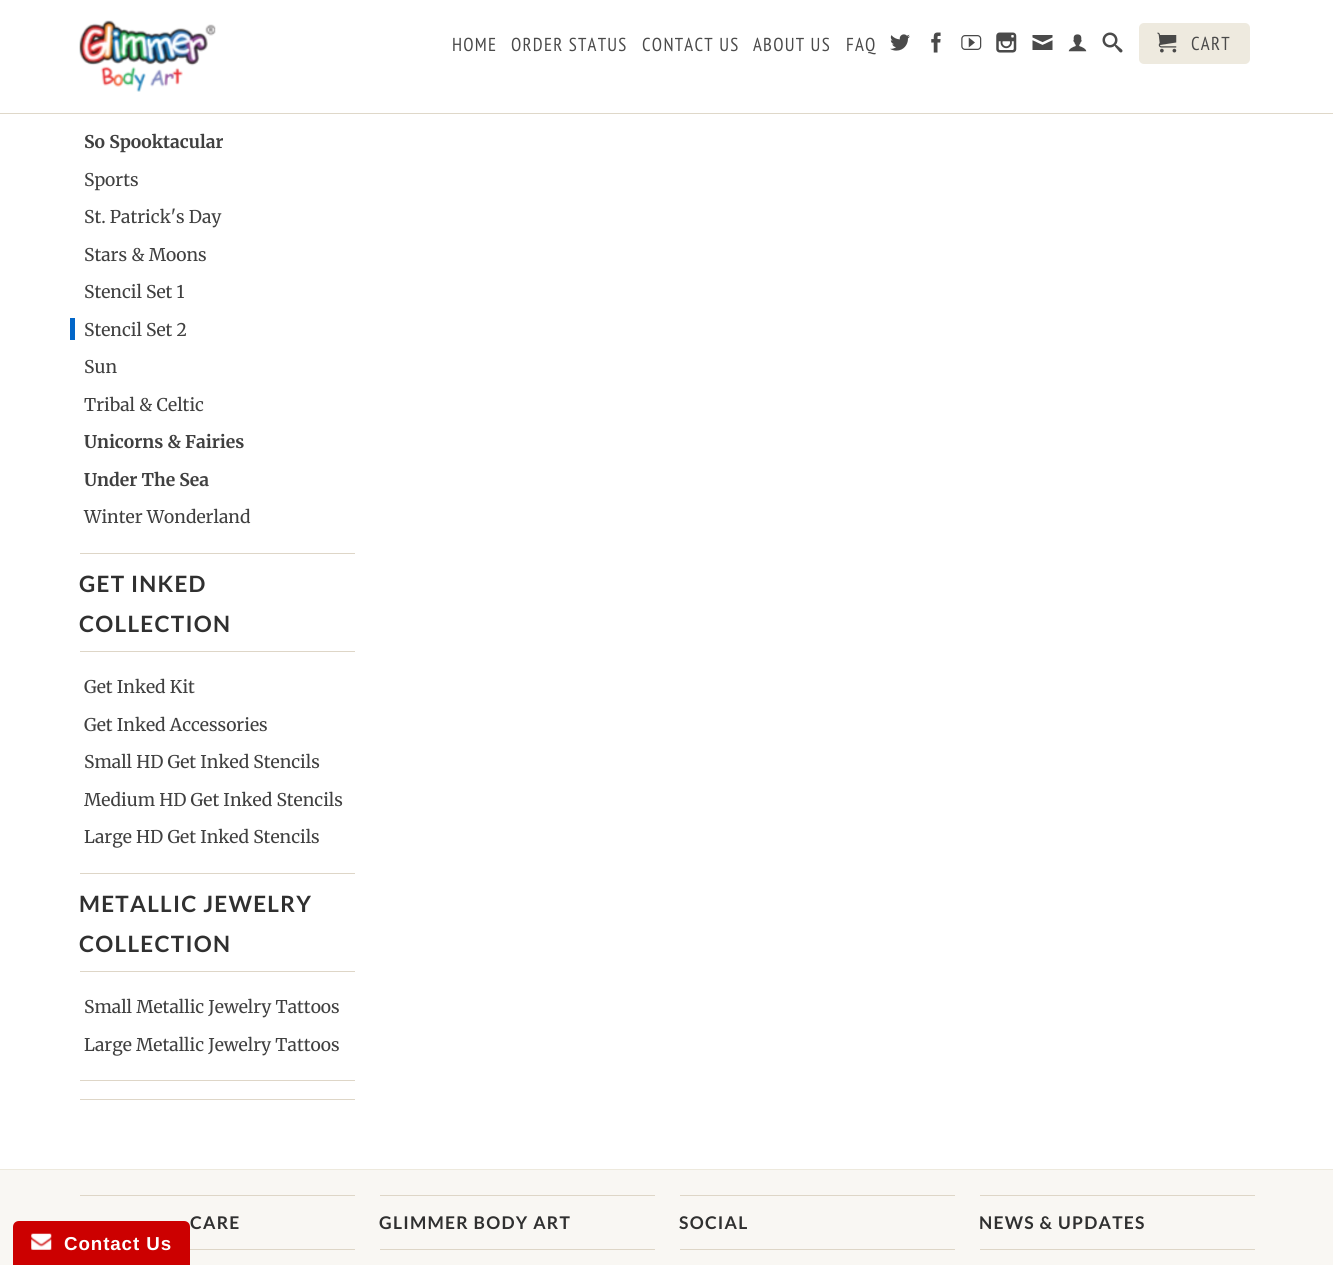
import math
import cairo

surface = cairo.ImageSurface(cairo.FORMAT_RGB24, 1333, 1265)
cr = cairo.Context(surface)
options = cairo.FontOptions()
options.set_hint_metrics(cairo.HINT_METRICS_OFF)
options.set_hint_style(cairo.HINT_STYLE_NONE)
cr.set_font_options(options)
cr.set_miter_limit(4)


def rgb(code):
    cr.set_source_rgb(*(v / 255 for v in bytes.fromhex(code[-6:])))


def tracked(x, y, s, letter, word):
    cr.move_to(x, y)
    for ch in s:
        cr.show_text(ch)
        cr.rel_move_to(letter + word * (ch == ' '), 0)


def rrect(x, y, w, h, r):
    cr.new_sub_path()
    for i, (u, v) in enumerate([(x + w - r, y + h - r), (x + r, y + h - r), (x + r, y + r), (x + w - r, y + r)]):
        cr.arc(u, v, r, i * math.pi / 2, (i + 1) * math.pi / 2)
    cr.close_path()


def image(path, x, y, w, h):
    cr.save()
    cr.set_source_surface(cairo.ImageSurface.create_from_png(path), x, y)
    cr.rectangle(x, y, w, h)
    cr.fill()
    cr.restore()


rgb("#ffffff")
cr.paint()
cr.set_source_rgba(0.871, 0.839, 0.78, 0.95)
cr.rectangle(0, 113, 1333, 1)
cr.fill()
image("img/1.png", 79, 20, 137, 72)
image("img/2.png", 890, 34, 20, 17)
image("img/3.png", 931, 32, 10, 21)
image("img/4.png", 961, 35, 21, 15)
image("img/5.png", 996, 32, 21, 21)
image("img/6.png", 1032, 35, 21, 15)
image("img/7.png", 1068, 34, 19, 18)
image("img/8.png", 1102, 32, 21, 21)
rgb("#eeeadf")
rrect(1139, 23, 111, 41, 5)
cr.fill()
image("img/9.png", 1157, 32, 20, 21)
for x, y, w, h, color in [
    (70, 318, 5, 22, "#0266c8"),
    (80, 553, 275, 1, "#ded6c7"),
    (80, 651, 275, 1, "#ded6c7"),
    (80, 873, 275, 1, "#ded6c7"),
    (80, 971, 275, 1, "#ded6c7"),
    (80, 1080, 275, 1, "#ded6c7"),
    (80, 1099, 275, 1, "#ded6c7"),
    (0, 1170, 1333, 95, "#f9f7f3"),
    (0, 1169, 1333, 1, "#ede9dd"),
    (80, 1195, 275, 1, "#ded6c7"),
    (190, 1249, 165, 1, "#ded6c7"),
    (380, 1195, 275, 1, "#ded6c7"),
    (380, 1249, 275, 1, "#ded6c7"),
    (680, 1195, 275, 1, "#ded6c7"),
    (680, 1249, 275, 1, "#ded6c7"),
    (980, 1195, 275, 1, "#ded6c7"),
    (980, 1249, 275, 1, "#ded6c7"),
]:
    rgb(color)
    cr.rectangle(x, y, w, h)
    cr.fill()
rgb("#cc0000")
cr.new_path()
cr.move_to(19, 1221)
cr.line_to(184, 1221)
cr.curve_to(187.5, 1221, 190, 1223.5, 190, 1227)
cr.line_to(190, 1265)
cr.line_to(13, 1265)
cr.line_to(13, 1227)
cr.curve_to(13, 1223.5, 15.5, 1221, 19, 1221)
cr.close_path()
cr.fill()
image("img/10.png", 31, 1233, 21, 17)
cr.select_font_face("PT Sans Narrow")
cr.set_font_size(18.75)
rgb("#4a4a4a")
for x, y, s in [
    (452, 51, "HOME"),
    (511, 51, "ORDER STATUS"),
    (642, 51, "CONTACT US"),
    (753, 51, "ABOUT US"),
    (846, 51, "FAQ"),
    (1191, 50, "CART"),
]:
    tracked(x, y, s, 1.25, 0)
cr.select_font_face("Merriweather", cairo.FONT_SLANT_NORMAL, cairo.FONT_WEIGHT_BOLD)
cr.set_font_size(17.5)
rgb("#404040")
cr.move_to(84, 148)
cr.show_text("So Spooktacular")
cr.select_font_face("Merriweather")
for x, y, s in [
    (84, 186, "Sports"),
    (84, 223, "St. Patrick's Day"),
    (84, 261, "Stars & Moons"),
    (84, 298, "Stencil Set 1"),
    (84, 336, "Stencil Set 2"),
    (84, 373, "Sun"),
    (84, 411, "Tribal & Celtic"),
]:
    cr.move_to(x, y)
    cr.show_text(s)
cr.select_font_face("Merriweather", cairo.FONT_SLANT_NORMAL, cairo.FONT_WEIGHT_BOLD)
cr.move_to(84, 448)
cr.show_text("Unicorns & Fairies")
cr.move_to(84, 486)
cr.show_text("Under The Sea")
cr.select_font_face("Merriweather")
cr.move_to(84, 523)
cr.show_text("Winter Wonderland")
cr.select_font_face("Lato", cairo.FONT_SLANT_NORMAL, cairo.FONT_WEIGHT_BOLD)
cr.set_font_size(22.5)
rgb("#303030")
tracked(79, 592, "GET INKED", 1.25, 0)
tracked(79, 632, "COLLECTION", 1.25, 0)
cr.select_font_face("Merriweather")
cr.set_font_size(17.5)
rgb("#404040")
for x, y, s in [
    (84, 693, "Get Inked Kit"),
    (84, 731, "Get Inked Accessories"),
    (84, 768, "Small HD Get Inked Stencils"),
    (84, 806, "Medium HD Get Inked Stencils"),
    (84, 843, "Large HD Get Inked Stencils"),
]:
    cr.move_to(x, y)
    cr.show_text(s)
cr.select_font_face("Lato", cairo.FONT_SLANT_NORMAL, cairo.FONT_WEIGHT_BOLD)
cr.set_font_size(22.5)
rgb("#303030")
tracked(79, 912, "METALLIC JEWELRY", 1.25, 0)
tracked(79, 952, "COLLECTION", 1.25, 0)
cr.select_font_face("Merriweather")
cr.set_font_size(17.5)
rgb("#404040")
cr.move_to(84, 1013)
cr.show_text("Small Metallic Jewelry Tattoos")
cr.move_to(84, 1051)
cr.show_text("Large Metallic Jewelry Tattoos")
cr.select_font_face("Lato", cairo.FONT_SLANT_NORMAL, cairo.FONT_WEIGHT_BOLD)
rgb("#303030")
for x, y, s in [
    (190, 1229, "CARE"),
    (379, 1229, "GLIMMER BODY ART"),
    (679, 1229, "SOCIAL"),
    (979, 1229, "NEWS & UPDATES"),
]:
    tracked(x, y, s, 1.25, 0)
cr.select_font_face("Liberation Sans", cairo.FONT_SLANT_NORMAL, cairo.FONT_WEIGHT_BOLD)
cr.set_font_size(18.75)
rgb("#ffffff")
tracked(64, 1250, "Contact Us", 0.9, 0)
surface.write_to_png("page.png")
